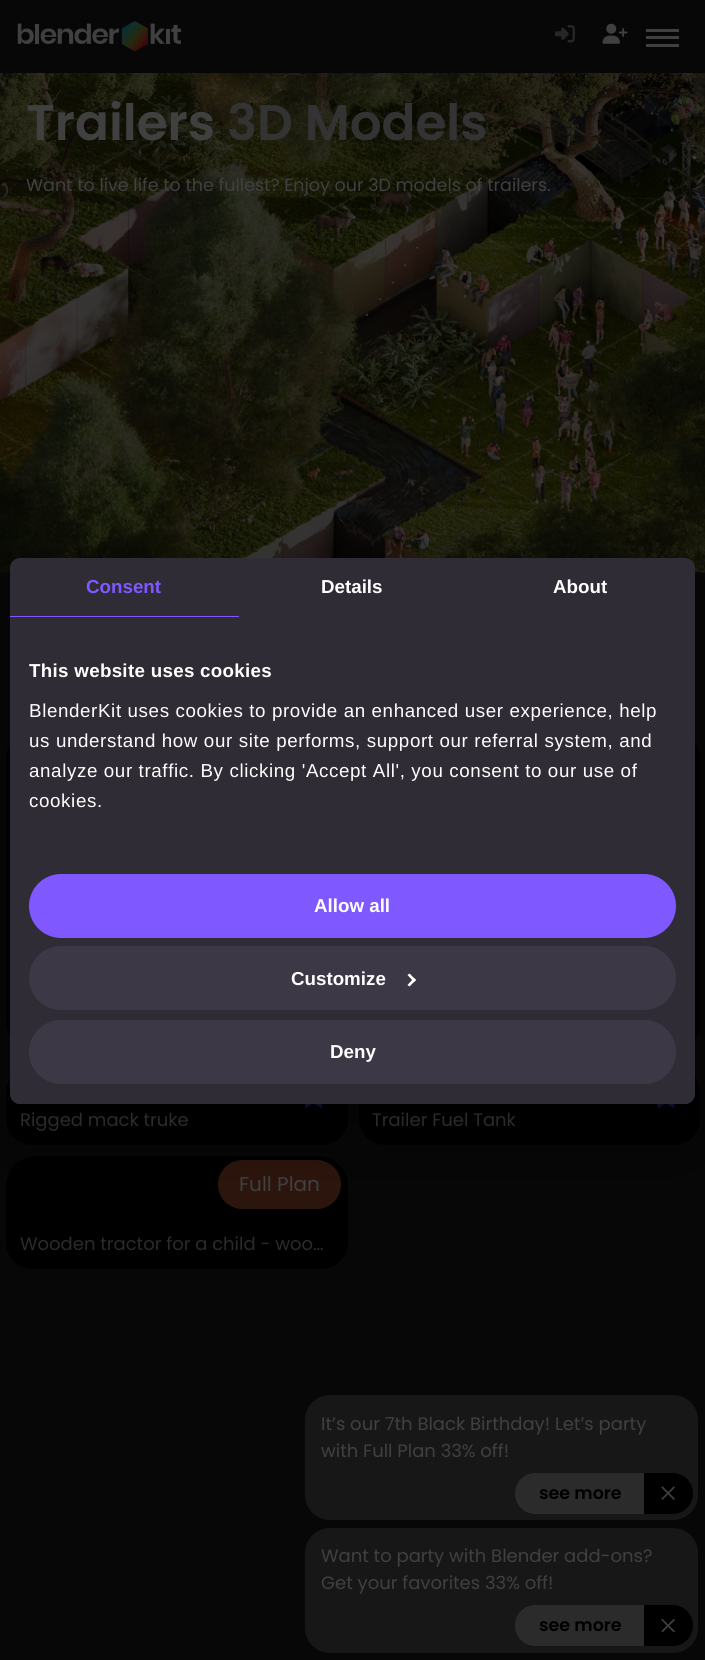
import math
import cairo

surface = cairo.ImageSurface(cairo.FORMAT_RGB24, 705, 1660)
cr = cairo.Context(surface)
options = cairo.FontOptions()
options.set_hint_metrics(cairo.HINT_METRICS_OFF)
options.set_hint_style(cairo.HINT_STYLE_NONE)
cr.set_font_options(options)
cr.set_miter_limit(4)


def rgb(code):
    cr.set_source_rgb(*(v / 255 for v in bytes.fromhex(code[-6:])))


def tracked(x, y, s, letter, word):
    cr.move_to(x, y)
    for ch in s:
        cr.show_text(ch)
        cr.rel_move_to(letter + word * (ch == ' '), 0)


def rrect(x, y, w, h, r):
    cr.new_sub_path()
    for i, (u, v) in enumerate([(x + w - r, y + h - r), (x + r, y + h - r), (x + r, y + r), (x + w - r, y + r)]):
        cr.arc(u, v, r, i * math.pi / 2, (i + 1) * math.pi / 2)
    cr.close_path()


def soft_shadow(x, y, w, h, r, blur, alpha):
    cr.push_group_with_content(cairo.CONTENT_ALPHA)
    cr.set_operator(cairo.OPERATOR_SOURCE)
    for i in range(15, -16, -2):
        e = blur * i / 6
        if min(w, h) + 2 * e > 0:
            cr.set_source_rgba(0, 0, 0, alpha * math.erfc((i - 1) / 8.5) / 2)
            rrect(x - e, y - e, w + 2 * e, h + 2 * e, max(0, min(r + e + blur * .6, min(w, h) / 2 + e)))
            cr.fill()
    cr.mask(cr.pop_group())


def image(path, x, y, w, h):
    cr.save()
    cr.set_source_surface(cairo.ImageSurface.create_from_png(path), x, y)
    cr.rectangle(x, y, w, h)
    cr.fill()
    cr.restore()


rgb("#070707")
cr.paint()
image("img/1.png", 17, 21, 164, 31)
image("img/2.png", 555, 25, 20, 18)
image("img/3.png", 602, 23, 26, 21)
for x, y, w, h, color in [
    (646, 29, 33, 3, "#404040"),
    (646, 36, 33, 3, "#404040"),
    (646, 44, 33, 3, "#404040"),
]:
    rgb(color)
    cr.rectangle(x, y, w, h)
    cr.fill()
image("img/4.png", 0, 73, 705, 500)
rgb("#000000")
rrect(6, 729, 342, 322, 30)
cr.fill()
rrect(359, 729, 341, 322, 30)
cr.fill()
rrect(359, 999, 341, 52, 26)
cr.fill()
rrect(6, 1063, 342, 82, 30)
cr.fill()
rrect(6, 1093, 342, 52, 26)
cr.fill()
image("img/5.png", 305, 1104, 17, 4)
rrect(359, 1063, 341, 82, 30)
cr.fill()
rrect(359, 1093, 341, 52, 26)
cr.fill()
image("img/6.png", 657, 1104, 18, 4)
rrect(6, 1156, 342, 113, 30)
cr.fill()
rrect(6, 1216, 342, 53, 26.5)
cr.fill()
rgb("#2d160d")
rrect(218.5, 1160.5, 122, 48, 24)
cr.fill_preserve()
cr.set_line_width(1)
cr.stroke()
rgb("#000000")
soft_shadow(10, 598, 685, 546, 10, 42.5, 0.3)
rgb("#2f2c35")
rrect(10, 558, 685, 546, 10)
cr.fill()
rgb("#7f58ff")
cr.rectangle(10, 616, 229, 1)
cr.fill()
cr.save()
rrect(10, 558, 685, 546, 10)
cr.clip()
rgb("#2f2c35")
cr.rectangle(10, 1103, 685, 1)
cr.fill()
cr.restore()
rrect(30.5, 875.5, 644, 61, 30.5)
cr.fill_preserve()
cr.set_line_width(3)
cr.stroke()
rgb("#3d3846")
rrect(30.5, 947.5, 644, 61, 30.5)
cr.fill_preserve()
cr.stroke()
rgb("#ffffff")
cr.new_path()
cr.move_to(409.5, 973.5)
cr.line_to(416, 980)
cr.line_to(414, 982)
cr.line_to(407.5, 975)
cr.close_path()
cr.fill()
cr.new_path()
cr.move_to(414, 978)
cr.line_to(416, 980)
cr.line_to(409.5, 986.5)
cr.line_to(407.5, 985)
cr.close_path()
cr.fill()
rgb("#3d3846")
rrect(30.5, 1021.5, 644, 61, 30.5)
cr.fill_preserve()
cr.stroke()
rgb("#171717")
rrect(305, 1395, 393, 125, 25)
cr.fill()
rgb("#2b2b2b")
cr.new_path()
cr.move_to(535.5, 1473)
cr.line_to(645, 1473)
cr.line_to(645, 1514)
cr.line_to(535.5, 1514)
cr.curve_to(524, 1514, 515, 1505, 515, 1493.5)
cr.curve_to(515, 1482, 524, 1473, 535.5, 1473)
cr.close_path()
cr.fill()
rgb("#000000")
cr.new_path()
cr.move_to(644, 1473)
cr.line_to(672.5, 1473)
cr.curve_to(684, 1473, 693, 1482, 693, 1493.5)
cr.curve_to(693, 1505, 684, 1514, 672.5, 1514)
cr.line_to(644, 1514)
cr.close_path()
cr.fill()
image("img/7.png", 661, 1486, 14, 14)
rgb("#171717")
rrect(305, 1528, 393, 125, 25)
cr.fill()
rgb("#2b2b2b")
cr.new_path()
cr.move_to(535.5, 1605)
cr.line_to(645, 1605)
cr.line_to(645, 1646)
cr.line_to(535.5, 1646)
cr.curve_to(524, 1646, 515, 1637, 515, 1625.5)
cr.curve_to(515, 1614, 524, 1605, 535.5, 1605)
cr.close_path()
cr.fill()
rgb("#000000")
cr.new_path()
cr.move_to(644, 1605)
cr.line_to(672.5, 1605)
cr.curve_to(684, 1605, 693, 1614, 693, 1625.5)
cr.curve_to(693, 1637, 684, 1646, 672.5, 1646)
cr.line_to(644, 1646)
cr.close_path()
cr.fill()
image("img/8.png", 661, 1619, 14, 14)
cr.select_font_face("Poppins SemiBold")
cr.set_font_size(50)
rgb("#404040")
cr.move_to(26, 140)
cr.show_text("Trailers")
rgb("#333333")
cr.move_to(227, 140)
cr.show_text("3D Models")
cr.select_font_face("Poppins")
cr.set_font_size(17.5)
rgb("#404040")
cr.move_to(26, 191)
cr.show_text("Want to live life to the fullest? Enjoy our 3D models of trailers.")
cr.select_font_face("Liberation Sans", cairo.FONT_SLANT_NORMAL, cairo.FONT_WEIGHT_BOLD)
cr.set_font_size(18.75)
rgb("#7f58ff")
cr.move_to(86, 593)
cr.show_text("Consent")
rgb("#ffffff")
cr.move_to(321, 593)
cr.show_text("Details")
cr.move_to(553, 593)
cr.show_text("About")
tracked(29, 677, "This website uses cookies", 0.3, 0)
cr.select_font_face("Liberation Sans")
for x, y, s in [
    (29, 717, "BlenderKit uses cookies to provide an enhanced user experience, help"),
    (29, 747, "us understand how our site performs, support our referral system, and"),
    (29, 777, "analyze our traffic. By clicking 'Accept All', you consent to our use of"),
    (29, 807, "cookies."),
]:
    tracked(x, y, s, 0.62, 0)
cr.select_font_face("Liberation Sans", cairo.FONT_SLANT_NORMAL, cairo.FONT_WEIGHT_BOLD)
for x, y, s in [
    (314, 912, "Allow all"),
    (291, 985, "Customize"),
    (330, 1058, "Deny"),
]:
    cr.move_to(x, y)
    cr.show_text(s)
cr.select_font_face("Poppins")
cr.set_font_size(18)
rgb("#2b2b2b")
cr.move_to(20, 1126)
cr.show_text("Rigged mack truke")
cr.move_to(372, 1126)
cr.show_text("Trailer Fuel Tank")
cr.set_font_size(20)
rgb("#404040")
cr.move_to(239, 1191)
cr.show_text("Full Plan")
cr.set_font_size(18)
rgb("#2b2b2b")
cr.move_to(20, 1250)
cr.show_text("Wooden tractor for a child - woo…")
rgb("#404040")
cr.move_to(321, 1430)
cr.show_text("It’s our 7th Black Birthday! Let’s party")
cr.move_to(321, 1457)
cr.show_text("with Full Plan 33% off!")
cr.select_font_face("Poppins SemiBold")
cr.set_font_size(17.5)
rgb("#000000")
cr.move_to(539, 1499)
cr.show_text("see more")
cr.select_font_face("Poppins")
cr.set_font_size(18)
rgb("#404040")
cr.move_to(321, 1562)
cr.show_text("Want to party with Blender add-ons?")
cr.move_to(321, 1589)
cr.show_text("Get your favorites 33% off!")
cr.select_font_face("Poppins SemiBold")
cr.set_font_size(17.5)
rgb("#000000")
cr.move_to(539, 1631)
cr.show_text("see more")
surface.write_to_png("page.png")
